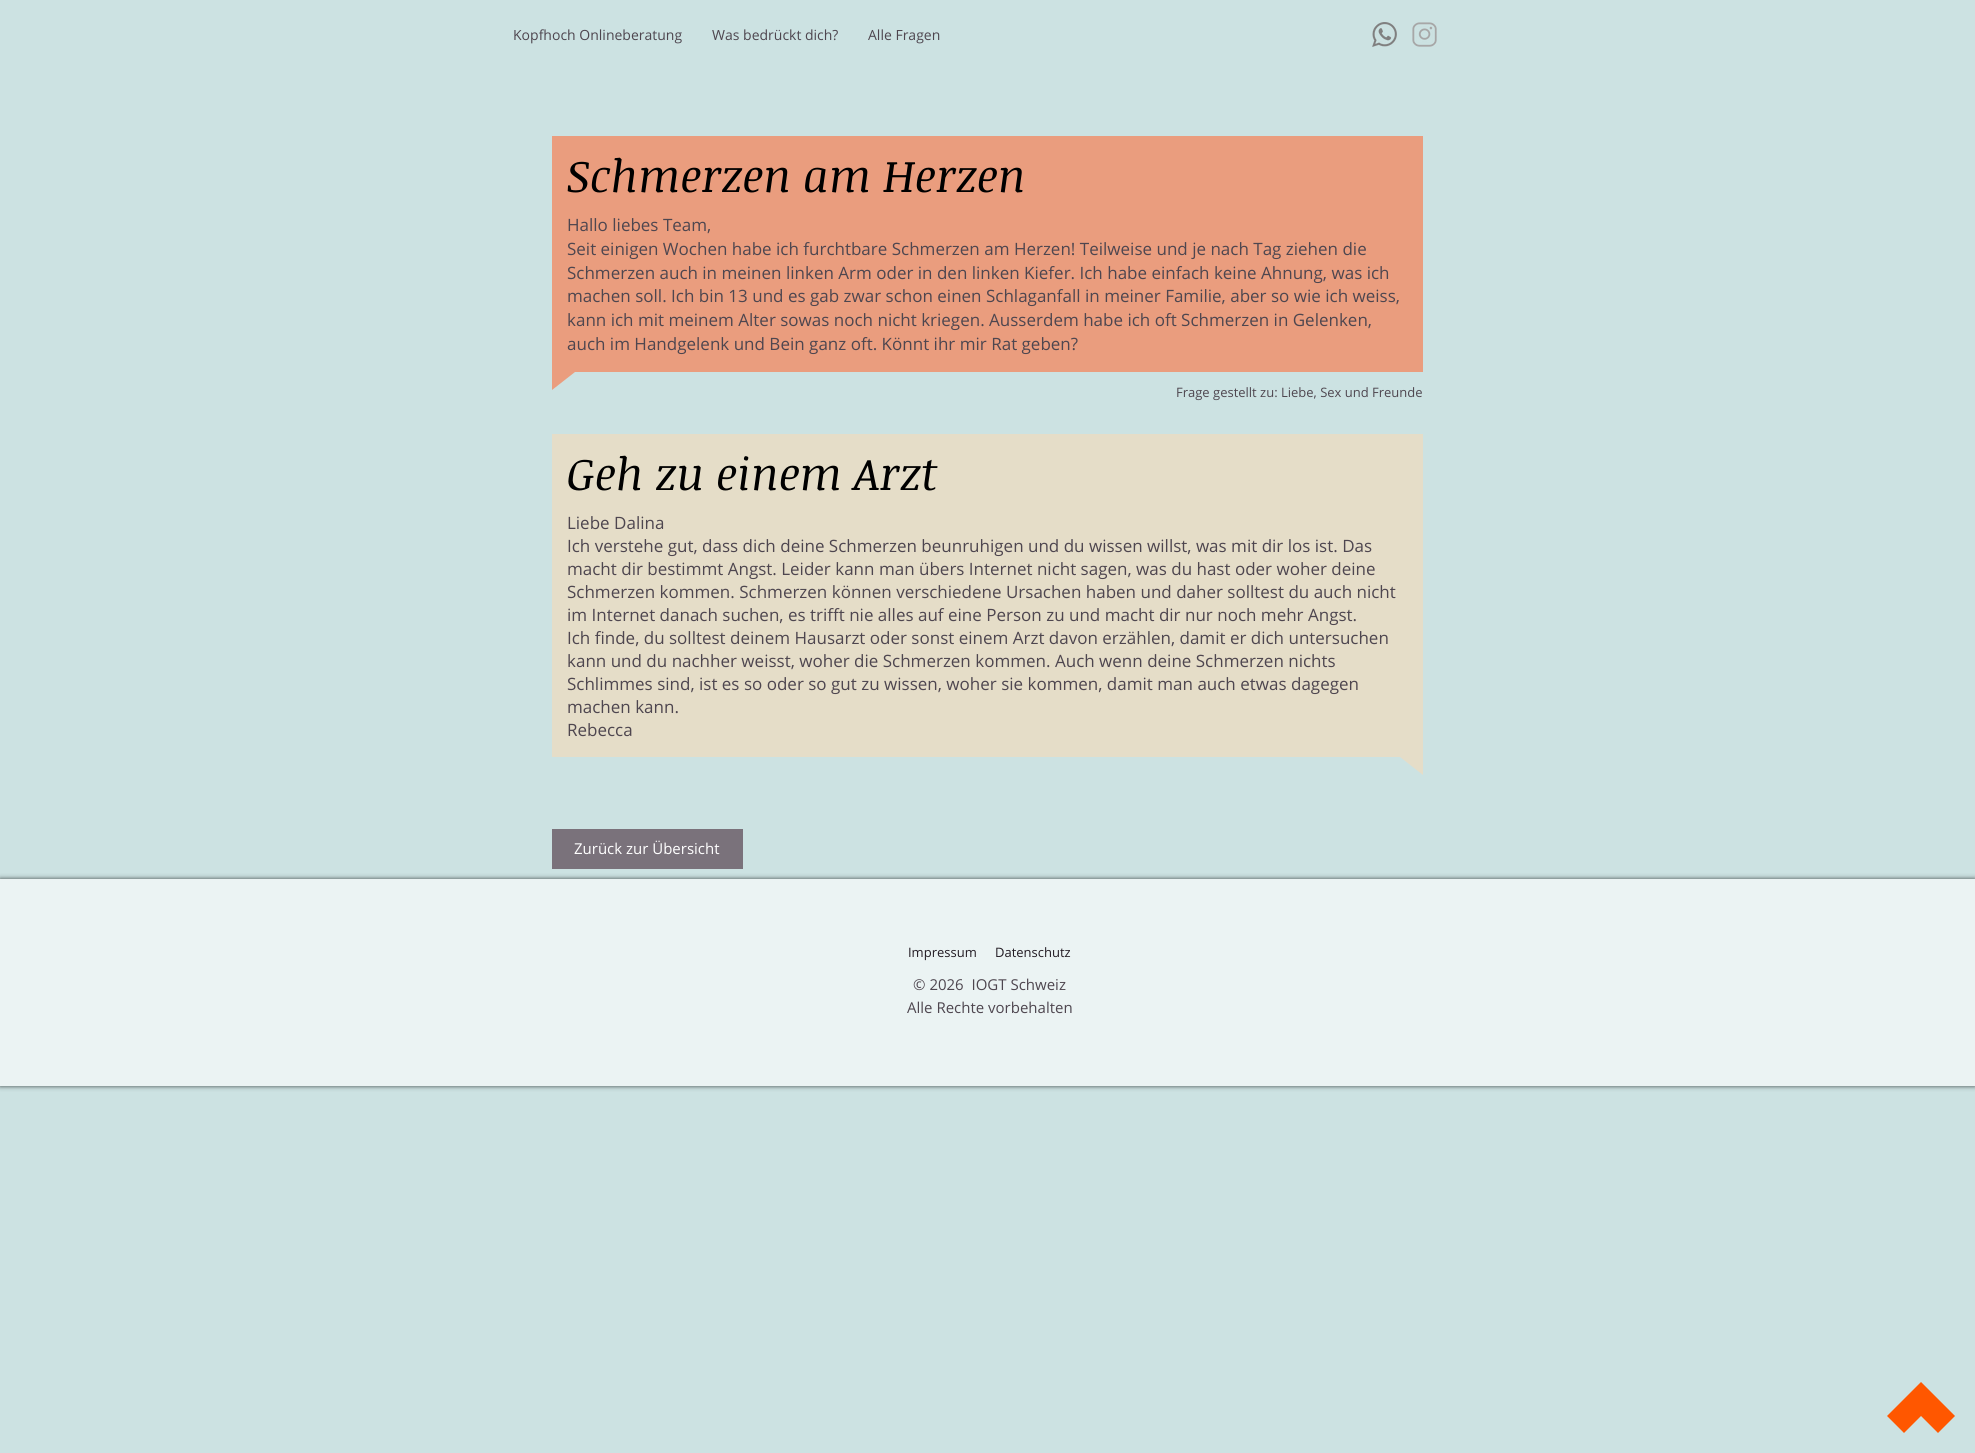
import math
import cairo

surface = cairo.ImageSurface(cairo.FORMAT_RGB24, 1975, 1453)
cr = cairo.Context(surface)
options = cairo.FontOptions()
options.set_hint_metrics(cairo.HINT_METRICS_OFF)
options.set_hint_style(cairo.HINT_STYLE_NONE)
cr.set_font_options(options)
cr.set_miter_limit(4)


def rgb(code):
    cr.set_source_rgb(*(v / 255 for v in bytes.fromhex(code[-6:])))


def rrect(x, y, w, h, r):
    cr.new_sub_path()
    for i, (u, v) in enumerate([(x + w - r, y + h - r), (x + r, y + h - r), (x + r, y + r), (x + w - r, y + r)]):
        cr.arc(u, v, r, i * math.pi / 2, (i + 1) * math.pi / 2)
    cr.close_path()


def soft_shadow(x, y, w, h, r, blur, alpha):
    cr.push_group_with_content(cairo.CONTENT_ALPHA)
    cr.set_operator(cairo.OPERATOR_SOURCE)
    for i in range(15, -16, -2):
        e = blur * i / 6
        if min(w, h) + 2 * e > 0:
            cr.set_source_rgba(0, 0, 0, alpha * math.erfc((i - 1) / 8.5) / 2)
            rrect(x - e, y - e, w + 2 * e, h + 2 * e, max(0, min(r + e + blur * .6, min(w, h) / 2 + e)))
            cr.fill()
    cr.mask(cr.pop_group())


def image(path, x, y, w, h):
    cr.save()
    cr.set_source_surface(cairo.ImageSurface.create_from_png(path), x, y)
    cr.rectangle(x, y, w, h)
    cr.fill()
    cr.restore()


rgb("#cce2e2")
cr.paint()
image("img/1.png", 1372, 22, 25, 25)
image("img/2.png", 1412, 22, 25, 25)
rgb("#ea9d7e")
cr.rectangle(552, 136, 871, 236)
cr.fill()
cr.new_path()
cr.move_to(552, 372)
cr.line_to(575, 372)
cr.line_to(552, 390)
cr.close_path()
cr.fill()
rgb("#e5ddc8")
cr.rectangle(552, 434, 871, 323)
cr.fill()
cr.new_path()
cr.move_to(1400, 757)
cr.line_to(1423, 757)
cr.line_to(1423, 775)
cr.close_path()
cr.fill()
rgb("#7a727b")
cr.rectangle(552, 829, 191, 40)
cr.fill()
rgb("#000000")
soft_shadow(0, 879, 1975, 207, 0, 2.5, 0.7)
rgb("#ebf3f3")
cr.rectangle(0, 879, 1975, 207)
cr.fill()
rgb("#ff5700")
cr.new_path()
cr.move_to(1904, 1399)
cr.line_to(1887, 1416)
cr.line_to(1904, 1433)
cr.line_to(1921, 1416)
cr.line_to(1938, 1433)
cr.line_to(1955, 1416)
cr.line_to(1921, 1382)
cr.close_path()
cr.fill()
cr.select_font_face("Open Sans")
cr.set_font_size(14)
rgb("#4e464f")
for x, y, s in [
    (513, 40, "Kopfhoch Onlineberatung"),
    (712, 40, "Was bedrückt dich?"),
    (868, 40, "Alle Fragen"),
]:
    cr.move_to(x, y)
    cr.show_text(s)
cr.select_font_face("Noticia Text", cairo.FONT_SLANT_ITALIC)
cr.set_font_size(45)
rgb("#000000")
cr.move_to(567, 192)
cr.show_text("Schmerzen am Herzen")
cr.select_font_face("Open Sans")
cr.set_font_size(17)
rgb("#4e464f")
for x, y, s in [
    (567, 231, "Hallo liebes Team,"),
    (567, 255, "Seit einigen Wochen habe ich furchtbare Schmerzen am Herzen! Teilweise und je nach Tag ziehen die"),
    (567, 279, "Schmerzen auch in meinen linken Arm oder in den linken Kiefer. Ich habe einfach keine Ahnung, was ich"),
    (567, 302, "machen soll. Ich bin 13 und es gab zwar schon einen Schlaganfall in meiner Familie, aber so wie ich weiss,"),
    (567, 326, "kann ich mit meinem Alter sowas noch nicht kriegen. Ausserdem habe ich oft Schmerzen in Gelenken,"),
    (567, 350, "auch im Handgelenk und Bein ganz oft. Könnt ihr mir Rat geben?"),
]:
    cr.move_to(x, y)
    cr.show_text(s)
cr.set_font_size(13)
cr.move_to(1176, 397)
cr.show_text("Frage gestellt zu: Liebe, Sex und Freunde")
cr.select_font_face("Noticia Text", cairo.FONT_SLANT_ITALIC)
cr.set_font_size(45)
rgb("#000000")
cr.move_to(567, 490)
cr.show_text("Geh zu einem Arzt")
cr.select_font_face("Open Sans")
cr.set_font_size(17)
rgb("#4e464f")
for x, y, s in [
    (567, 529, "Liebe Dalina"),
    (567, 552, "Ich verstehe gut, dass dich deine Schmerzen beunruhigen und du wissen willst, was mit dir los ist. Das"),
    (567, 575, "macht dir bestimmt Angst. Leider kann man übers Internet nicht sagen, was du hast oder woher deine"),
    (567, 598, "Schmerzen kommen. Schmerzen können verschiedene Ursachen haben und daher solltest du auch nicht"),
    (567, 621, "im Internet danach suchen, es trifft nie alles auf eine Person zu und macht dir nur noch mehr Angst."),
    (567, 644, "Ich finde, du solltest deinem Hausarzt oder sonst einem Arzt davon erzählen, damit er dich untersuchen"),
    (567, 667, "kann und du nachher weisst, woher die Schmerzen kommen. Auch wenn deine Schmerzen nichts"),
    (567, 690, "Schlimmes sind, ist es so oder so gut zu wissen, woher sie kommen, damit man auch etwas dagegen"),
    (567, 713, "machen kann."),
    (567, 736, "Rebecca"),
]:
    cr.move_to(x, y)
    cr.show_text(s)
cr.set_font_size(15)
rgb("#ffffff")
cr.move_to(574, 854)
cr.show_text("Zurück zur Übersicht")
cr.set_font_size(13)
rgb("#221b23")
cr.move_to(908, 957)
cr.show_text("Impressum")
cr.move_to(995, 957)
cr.show_text("Datenschutz")
cr.set_font_size(15)
rgb("#4e464f")
cr.move_to(913, 990)
cr.show_text("© 2026  IOGT Schweiz")
cr.move_to(907, 1013)
cr.show_text("Alle Rechte vorbehalten")
surface.write_to_png("page.png")
